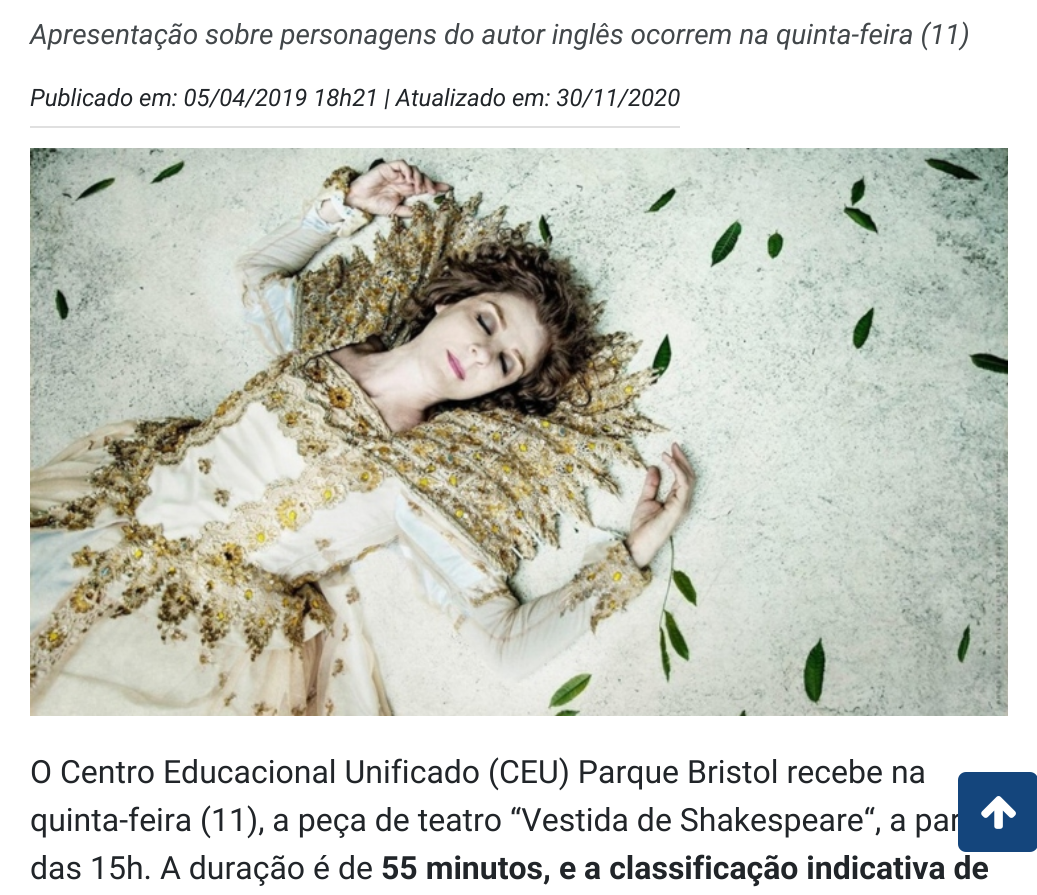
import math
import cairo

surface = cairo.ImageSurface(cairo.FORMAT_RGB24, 1037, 895)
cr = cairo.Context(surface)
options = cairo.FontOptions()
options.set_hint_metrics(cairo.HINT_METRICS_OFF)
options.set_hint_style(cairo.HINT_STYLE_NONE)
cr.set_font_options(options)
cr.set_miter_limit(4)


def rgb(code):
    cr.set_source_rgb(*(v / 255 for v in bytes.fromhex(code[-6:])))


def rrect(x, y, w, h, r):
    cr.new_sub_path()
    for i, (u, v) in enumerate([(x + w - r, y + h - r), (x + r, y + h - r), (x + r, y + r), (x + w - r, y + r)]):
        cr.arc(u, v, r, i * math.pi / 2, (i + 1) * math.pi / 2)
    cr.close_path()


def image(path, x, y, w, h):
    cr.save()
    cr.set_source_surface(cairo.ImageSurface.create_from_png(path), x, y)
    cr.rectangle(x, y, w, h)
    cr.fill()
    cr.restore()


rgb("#ffffff")
cr.paint()
rgb("#e0e0e0")
cr.rectangle(30, 126, 650, 2)
cr.fill()
image("img/1.png", 30, 148, 978, 568)
cr.select_font_face("Roboto", cairo.FONT_SLANT_ITALIC)
cr.set_font_size(28)
rgb("#42474a")
cr.move_to(30, 44)
cr.show_text("Apresentação sobre personagens do autor inglês ocorrem na quinta-feira (11)")
cr.set_font_size(24)
rgb("#212529")
cr.move_to(30, 106)
cr.show_text("Publicado em: 05/04/2019 18h21 | Atualizado em: 30/11/2020")
cr.select_font_face("Roboto")
cr.set_font_size(32)
for x, y, s in [
    (30, 783, "O Centro Educacional Unificado (CEU) Parque Bristol recebe na"),
    (30, 831, "quinta-feira (11), a peça de teatro “Vestida de Shakespeare“, a par"),
    (30, 879, "das 15h. A duração é de"),
]:
    cr.move_to(x, y)
    cr.show_text(s)
cr.select_font_face("Roboto", cairo.FONT_SLANT_NORMAL, cairo.FONT_WEIGHT_BOLD)
cr.move_to(381, 879)
cr.show_text("55 minutos, e a classificação indicativa de")
rgb("#14457c")
rrect(958, 772, 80, 80, 8)
cr.fill()
image("img/2.png", 981, 796, 35, 33)
surface.write_to_png("page.png")
